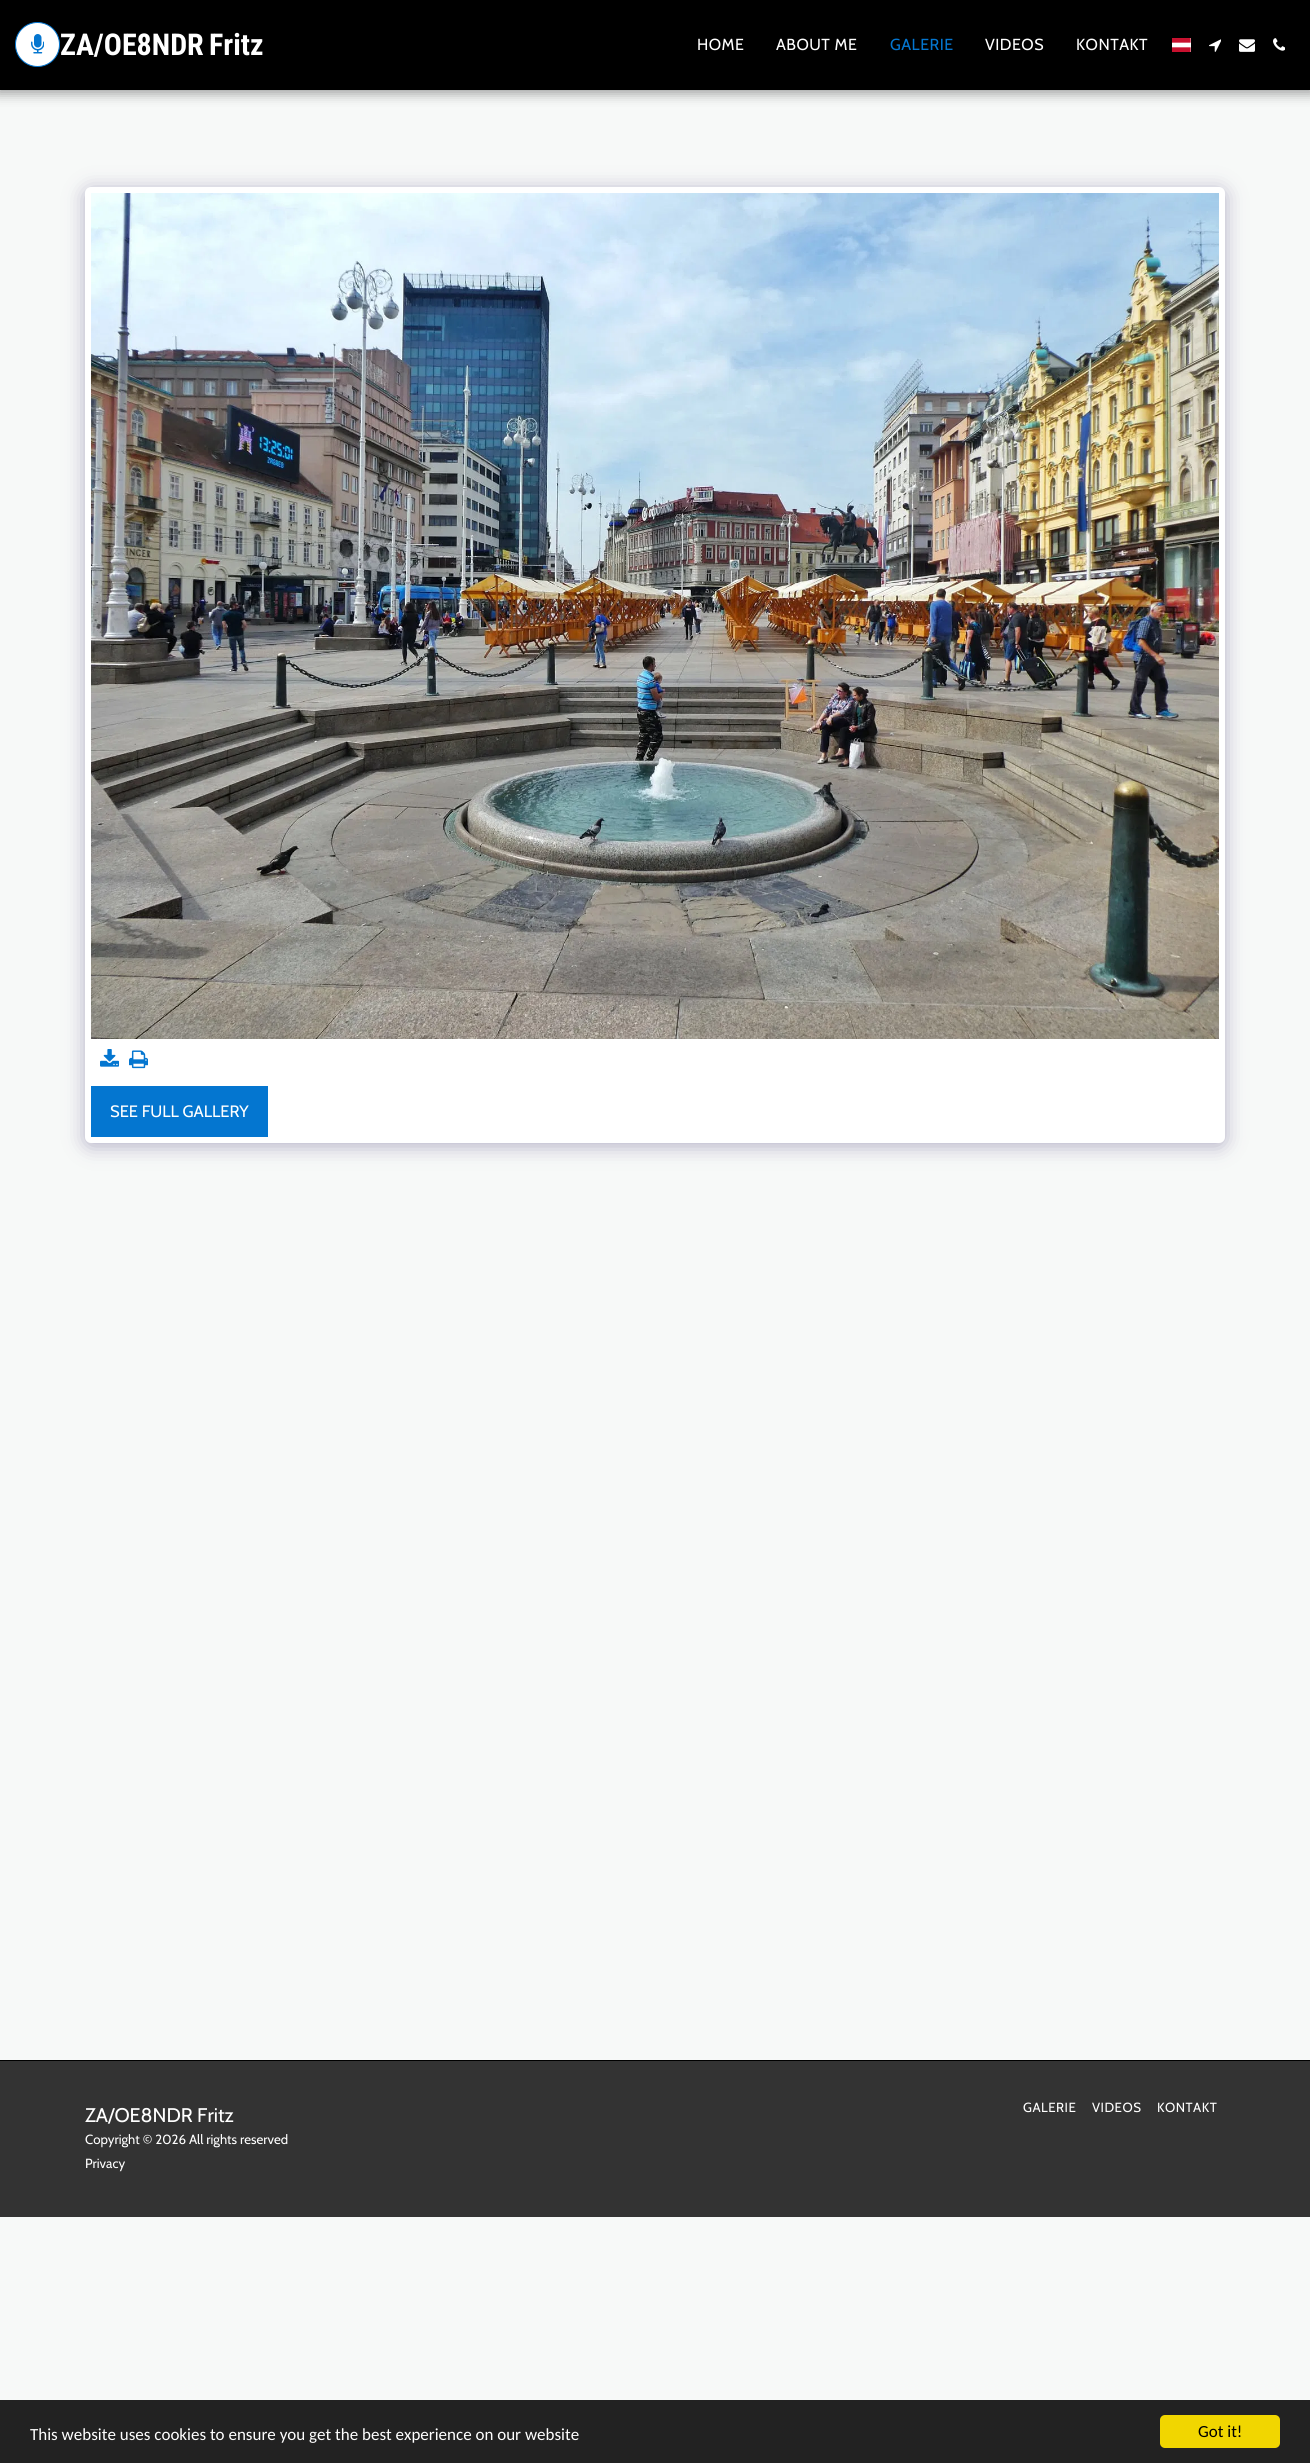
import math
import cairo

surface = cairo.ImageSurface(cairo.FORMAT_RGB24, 1310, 2463)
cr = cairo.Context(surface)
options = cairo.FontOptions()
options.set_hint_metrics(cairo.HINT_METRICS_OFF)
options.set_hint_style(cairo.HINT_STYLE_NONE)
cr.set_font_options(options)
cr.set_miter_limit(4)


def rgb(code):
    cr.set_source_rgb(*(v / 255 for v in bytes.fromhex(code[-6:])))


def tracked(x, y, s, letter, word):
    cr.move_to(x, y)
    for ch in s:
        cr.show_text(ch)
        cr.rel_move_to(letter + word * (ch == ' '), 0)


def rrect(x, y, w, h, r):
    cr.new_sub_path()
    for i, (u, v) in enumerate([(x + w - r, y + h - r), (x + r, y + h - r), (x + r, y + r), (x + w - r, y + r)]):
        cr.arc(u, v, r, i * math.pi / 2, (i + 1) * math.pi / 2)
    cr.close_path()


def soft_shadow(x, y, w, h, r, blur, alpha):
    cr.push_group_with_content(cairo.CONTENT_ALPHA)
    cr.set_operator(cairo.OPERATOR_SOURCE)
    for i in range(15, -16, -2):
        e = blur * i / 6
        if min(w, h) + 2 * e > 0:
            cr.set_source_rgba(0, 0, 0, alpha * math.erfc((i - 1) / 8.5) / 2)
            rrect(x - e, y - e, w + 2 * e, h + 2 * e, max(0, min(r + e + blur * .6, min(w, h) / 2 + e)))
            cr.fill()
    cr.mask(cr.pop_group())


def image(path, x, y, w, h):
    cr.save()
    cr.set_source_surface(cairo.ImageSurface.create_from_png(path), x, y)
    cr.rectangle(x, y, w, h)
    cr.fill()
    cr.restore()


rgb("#f7f9f8")
cr.paint()
rgb("#000000")
soft_shadow(-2, 0, 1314, 94, 0, 6, 0.35)
rgb("#000000")
cr.rectangle(0, 0, 1310, 90)
cr.fill()
rgb("#ffffff")
cr.arc(37.5, 44.5, 22, 0, 2 * math.pi)
cr.fill_preserve()
rgb("#0476d0")
cr.set_line_width(1)
cr.stroke()
image("img/1.png", 31, 34, 13, 20)
image("img/2.png", 1172, 38, 19, 14)
image("img/3.png", 1209, 39, 12, 13)
image("img/4.png", 1239, 39, 16, 13)
image("img/5.png", 1273, 38, 12, 13)
rgb("#4d3f7a")
soft_shadow(85, 190, 1140, 956, 6, 10, 0.4)
rgb("#ffffff")
rrect(85, 187, 1140, 956, 6)
cr.fill()
image("img/6.png", 91, 193, 1128, 846)
image("img/7.png", 100, 1049, 19, 18)
image("img/8.png", 129, 1050, 19, 19)
for x, y, w, h, color in [
    (91, 1086, 177, 51, "#0476d0"),
    (0, 2061, 1310, 156, "#333333"),
    (0, 2060, 1310, 1, "#000000"),
    (0, 2400, 1310, 63, "#222222"),
]:
    rgb(color)
    cr.rectangle(x, y, w, h)
    cr.fill()
rgb("#f1d600")
rrect(1160, 2415, 120, 33, 5)
cr.fill()
cr.select_font_face("Roboto Condensed", cairo.FONT_SLANT_NORMAL, cairo.FONT_WEIGHT_BOLD)
cr.set_font_size(30)
rgb("#ffffff")
cr.move_to(60, 55)
cr.show_text("ZA/OE8NDR")
cr.move_to(209, 55)
cr.show_text("Fritz")
cr.select_font_face("Cabin")
cr.set_font_size(16)
tracked(697, 50, "HOME", 0.5, 0)
tracked(776, 50, "ABOUT ME", 0.5, 0)
rgb("#0476d0")
tracked(890, 50, "GALERIE", 0.5, 0)
rgb("#ffffff")
tracked(985, 50, "VIDEOS", 0.5, 0)
tracked(1076, 50, "KONTAKT", 0.5, 0)
cr.set_font_size(16.5)
cr.move_to(110, 1117)
cr.show_text("SEE FULL GALLERY")
cr.set_font_size(19.75)
cr.move_to(85, 2122)
cr.show_text("ZA/OE8NDR Fritz")
cr.set_font_size(13.25)
cr.move_to(85, 2144)
cr.show_text("Copyright © 2026 All rights reserved")
cr.move_to(85, 2168)
cr.show_text("Privacy")
for x, y, s in [
    (1023, 2112, "GALERIE"),
    (1092, 2112, "VIDEOS"),
    (1157, 2112, "KONTAKT"),
]:
    tracked(x, y, s, 0.5, 0)
cr.select_font_face("Carlito")
cr.set_font_size(17)
cr.move_to(30, 2440)
cr.show_text("This website uses cookies to ensure you get the best experience on our website")
rgb("#000000")
cr.move_to(1198, 2437)
cr.show_text("Got it!")
surface.write_to_png("page.png")
